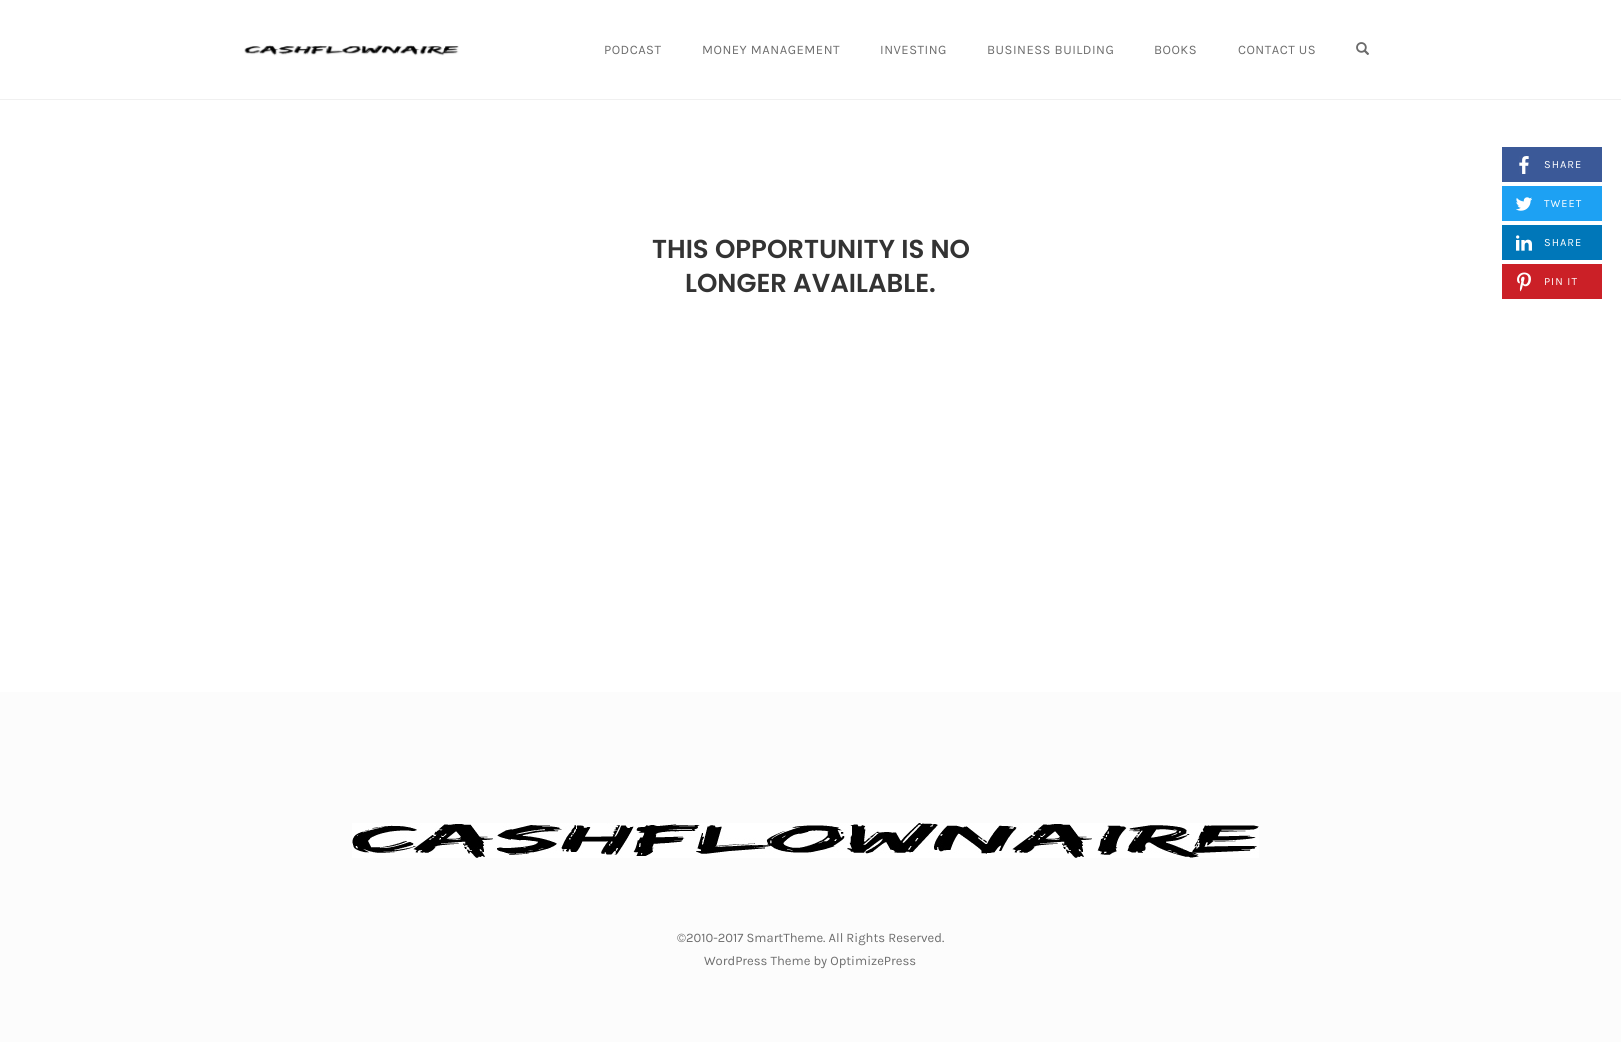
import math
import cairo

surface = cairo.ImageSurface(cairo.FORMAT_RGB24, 1621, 1042)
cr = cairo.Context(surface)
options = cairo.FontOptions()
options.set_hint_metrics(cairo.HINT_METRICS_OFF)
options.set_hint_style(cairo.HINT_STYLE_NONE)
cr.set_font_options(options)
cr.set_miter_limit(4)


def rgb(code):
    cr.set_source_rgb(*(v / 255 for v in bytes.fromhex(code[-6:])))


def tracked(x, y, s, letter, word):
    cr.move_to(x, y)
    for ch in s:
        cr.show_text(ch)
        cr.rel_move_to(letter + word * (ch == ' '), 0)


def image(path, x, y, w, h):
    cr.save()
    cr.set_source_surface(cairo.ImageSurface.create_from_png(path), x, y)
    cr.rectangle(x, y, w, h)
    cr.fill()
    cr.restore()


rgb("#ffffff")
cr.paint()
rgb("#f0f0f0")
cr.rectangle(0, 99, 1621, 1)
cr.fill()
image("img/1.png", 244, 45, 215, 11)
image("img/2.png", 1356, 42, 13, 13)
rgb("#3b5998")
cr.rectangle(1502, 147, 100, 35)
cr.fill()
image("img/3.png", 1519, 156, 10, 18)
rgb("#1da1f3")
cr.rectangle(1502, 186, 100, 35)
cr.fill()
image("img/4.png", 1516, 197, 16, 14)
rgb("#0077b9")
cr.rectangle(1502, 225, 100, 35)
cr.fill()
image("img/5.png", 1516, 235, 16, 16)
rgb("#cb2027")
cr.rectangle(1502, 264, 100, 35)
cr.fill()
image("img/6.png", 1517, 272, 14, 20)
rgb("#fcfcfc")
cr.rectangle(0, 692, 1621, 350)
cr.fill()
image("img/7.png", 352, 823, 907, 35)
cr.select_font_face("Karla")
cr.set_font_size(13)
rgb("#6d6d6d")
for x, y, s in [
    (604, 54, "PODCAST"),
    (702, 54, "MONEY MANAGEMENT"),
    (880, 54, "INVESTING"),
    (987, 54, "BUSINESS BUILDING"),
    (1154, 54, "BOOKS"),
    (1238, 54, "CONTACT US"),
]:
    tracked(x, y, s, 0.5, 0)
cr.select_font_face("Poppins SemiBold")
cr.set_font_size(26)
rgb("#333333")
cr.move_to(652, 258)
cr.show_text("THIS OPPORTUNITY IS NO")
cr.move_to(685, 292)
cr.show_text("LONGER AVAILABLE.")
cr.select_font_face("Karla")
cr.set_font_size(11)
rgb("#ffffff")
for x, y, s in [
    (1544, 168, "SHARE"),
    (1544, 207, "TWEET"),
    (1544, 246, "SHARE"),
    (1544, 285, "PIN IT"),
]:
    tracked(x, y, s, 1, 0)
cr.set_font_size(13)
rgb("#6d6d6d")
cr.move_to(677, 942)
cr.show_text("©2010-2017 SmartTheme. All Rights Reserved.")
cr.move_to(704, 965)
cr.show_text("WordPress Theme by OptimizePress")
surface.write_to_png("page.png")
